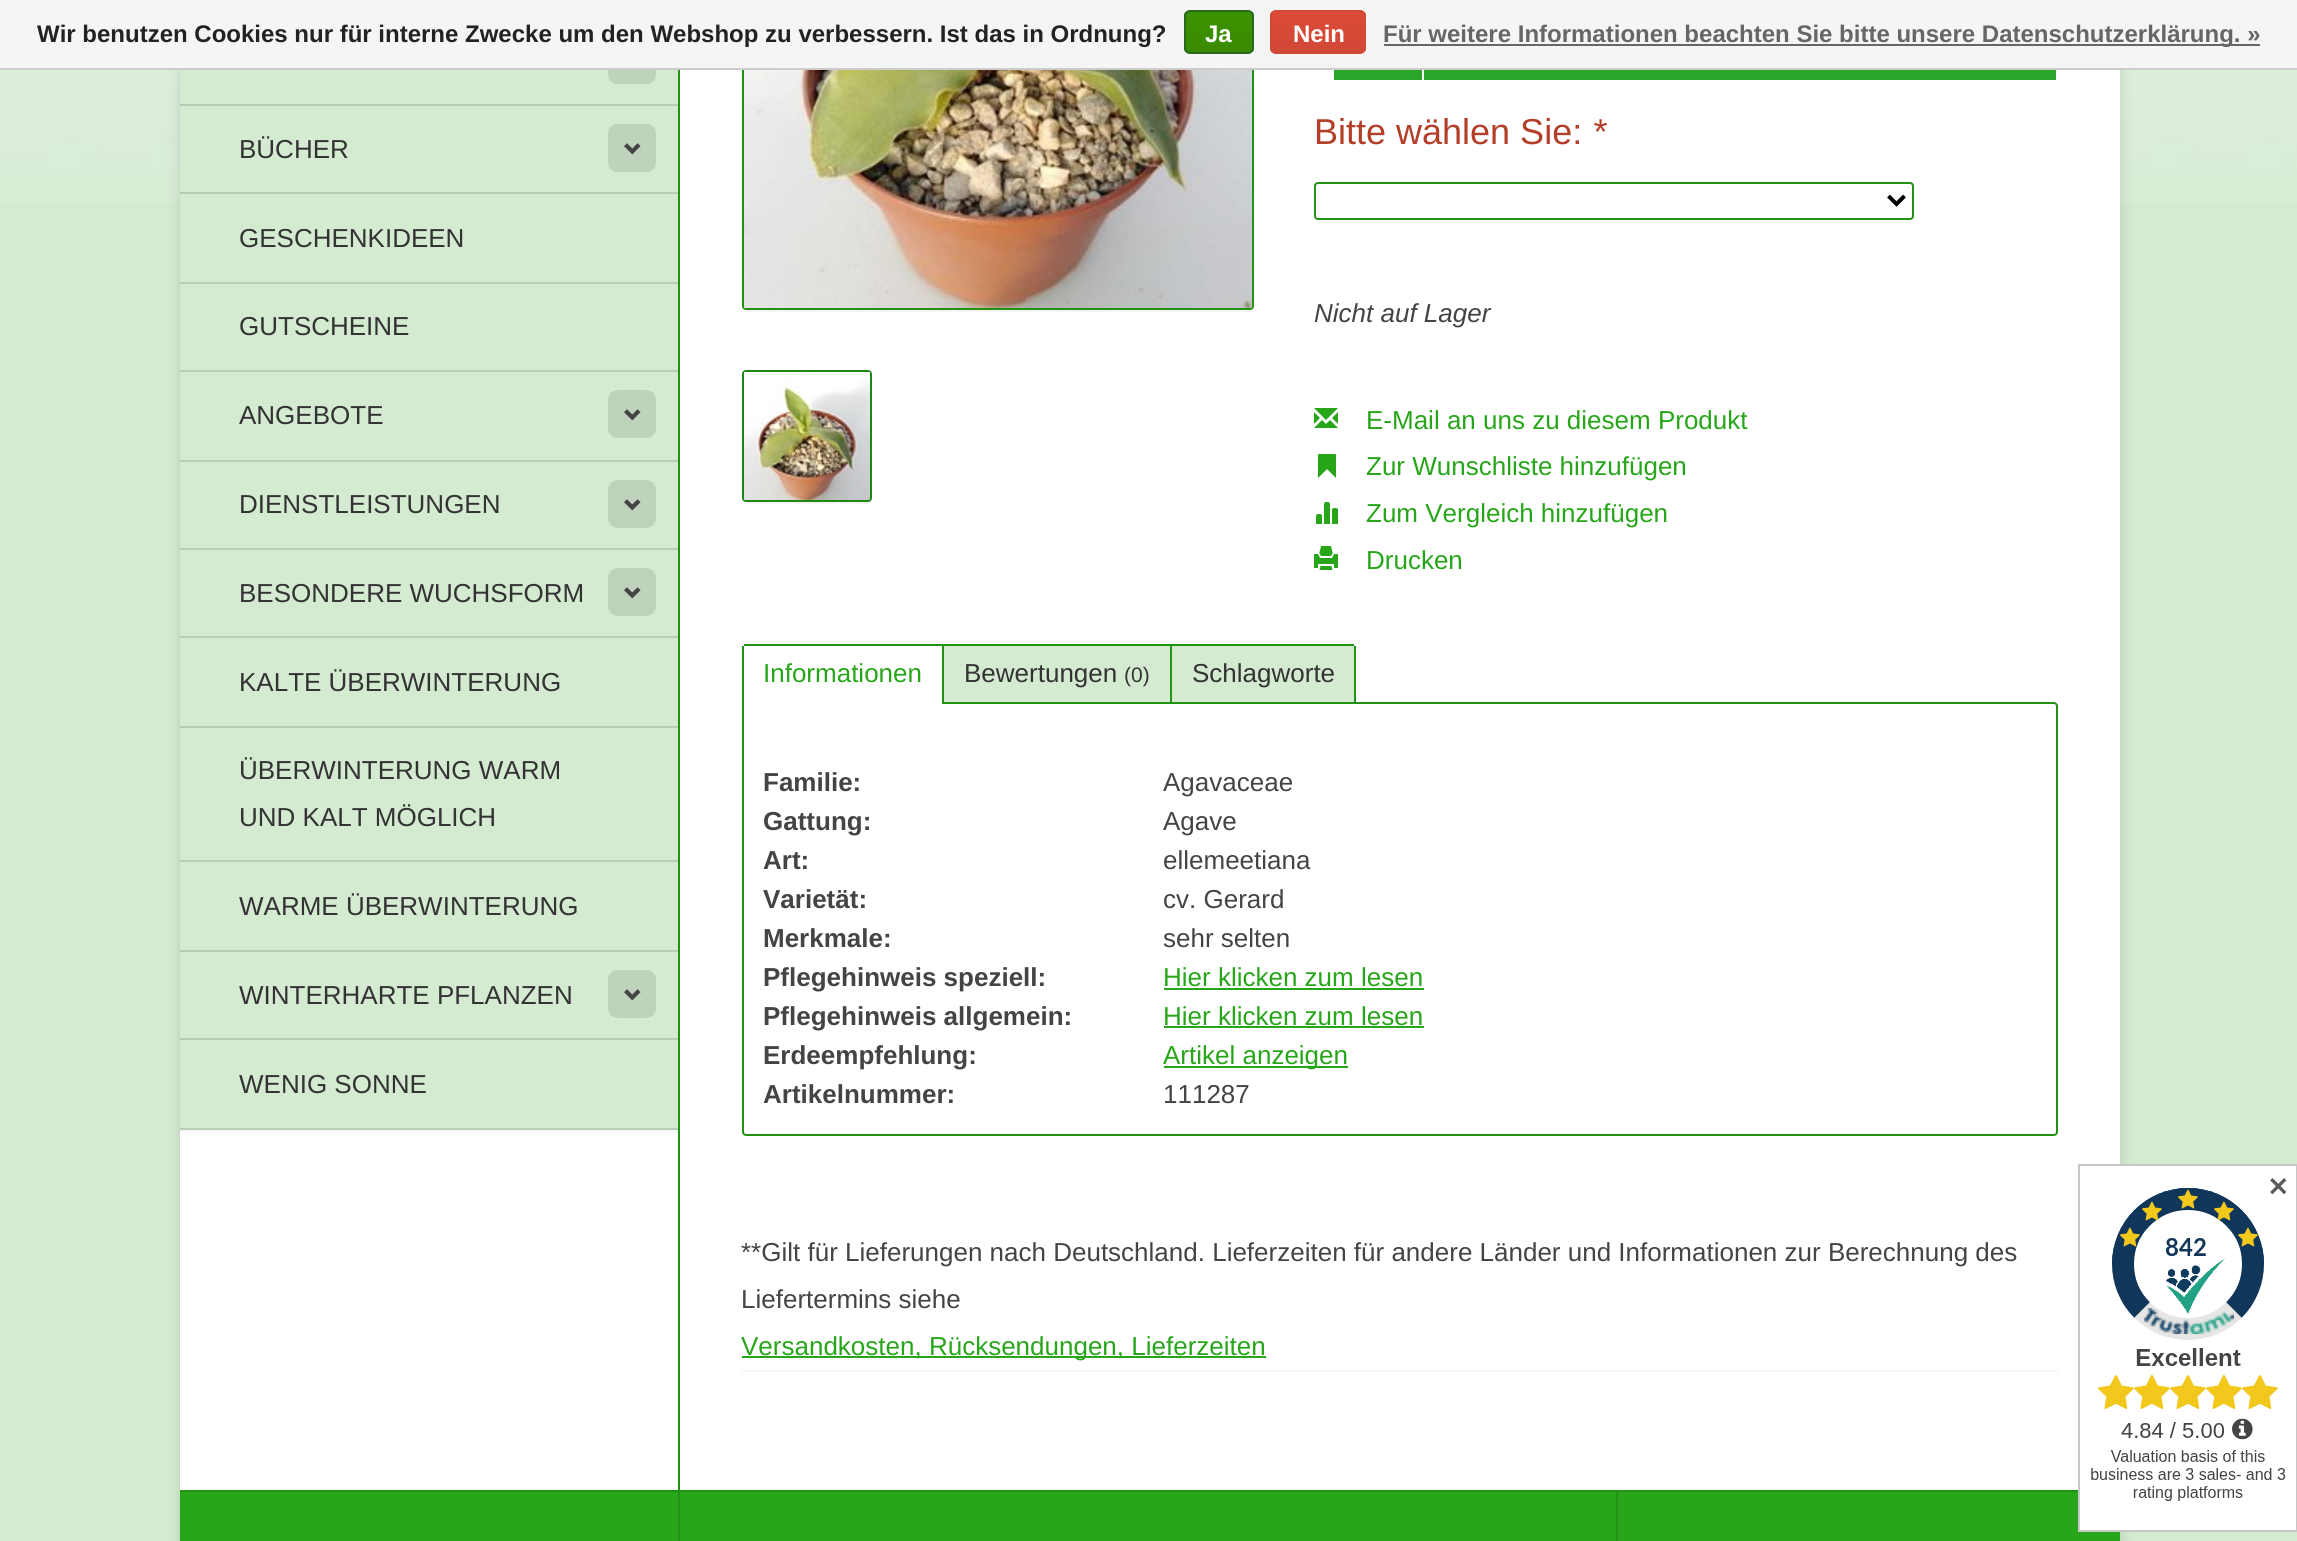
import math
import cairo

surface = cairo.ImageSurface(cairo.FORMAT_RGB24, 2297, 1541)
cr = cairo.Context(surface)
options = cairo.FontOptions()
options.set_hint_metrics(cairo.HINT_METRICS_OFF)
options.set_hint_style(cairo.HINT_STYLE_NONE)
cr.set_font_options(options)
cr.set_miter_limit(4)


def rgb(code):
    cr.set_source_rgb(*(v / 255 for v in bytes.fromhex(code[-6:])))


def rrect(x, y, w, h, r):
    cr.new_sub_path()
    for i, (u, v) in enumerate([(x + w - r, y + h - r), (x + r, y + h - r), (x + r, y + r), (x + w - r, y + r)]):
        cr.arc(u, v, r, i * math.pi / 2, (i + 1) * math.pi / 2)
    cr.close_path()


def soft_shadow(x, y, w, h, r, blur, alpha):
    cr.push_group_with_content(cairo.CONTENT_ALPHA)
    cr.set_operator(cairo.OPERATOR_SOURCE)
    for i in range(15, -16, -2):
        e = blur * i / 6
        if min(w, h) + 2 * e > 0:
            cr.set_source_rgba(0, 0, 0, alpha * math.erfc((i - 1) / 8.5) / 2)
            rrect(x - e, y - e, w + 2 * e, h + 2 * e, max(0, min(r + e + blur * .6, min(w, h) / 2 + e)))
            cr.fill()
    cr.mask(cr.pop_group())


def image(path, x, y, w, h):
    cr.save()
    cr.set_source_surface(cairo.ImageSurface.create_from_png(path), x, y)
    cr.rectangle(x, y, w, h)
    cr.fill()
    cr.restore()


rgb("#d4ead1")
cr.paint()
image("img/1.png", 0, 70, 2297, 132)
rgb("#000000")
soft_shadow(180, -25, 1940, 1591, 4, 7, 0.13)
rgb("#ffffff")
cr.rectangle(180, 70, 1940, 1420)
cr.fill()
rgb("#d4ead1")
cr.rectangle(180, 70, 498, 34)
cr.fill()
rgb("#bed2bc")
rrect(608, 36, 48, 48, 10)
cr.fill()
rgb("#f5f5f5")
cr.new_path()
cr.move_to(742, 306)
cr.curve_to(742, 309, 742, 312, 746, 312)
cr.line_to(1250, 312)
cr.curve_to(1254, 312, 1254, 309, 1254, 306)
cr.curve_to(1254, 308, 1252, 310, 1250, 310)
cr.line_to(746, 310)
cr.curve_to(744, 310, 742, 308, 742, 306)
cr.close_path()
cr.fill()
rrect(743, -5, 510, 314, 3)
rgb("#229216")
cr.stroke()
rgb("#f5f5f5")
cr.rectangle(0, 0, 2297, 68)
cr.fill()
rgb("#cccccc")
cr.rectangle(0, 68, 2297, 2)
cr.fill()
cr.save()
rrect(1184, 10, 70, 44, 6)
cr.clip()
gradient = cairo.LinearGradient(1219, 12, 1219, 52)
gradient.add_color_stop_rgba(0, 0.235, 0.576, 0, 1)
gradient.add_color_stop_rgba(1, 0.224, 0.541, 0, 1)
cr.set_source(gradient)
cr.rectangle(1184, 12, 70, 40)
cr.fill()
cr.restore()
rrect(1185, 11, 68, 42, 5)
rgb("#29691d")
cr.stroke()
cr.save()
rrect(1270, 10, 96, 44, 6)
cr.clip()
gradient = cairo.LinearGradient(1318, 12, 1318, 52)
gradient.add_color_stop_rgba(0, 0.863, 0.29, 0.22, 1)
gradient.add_color_stop_rgba(1, 0.82, 0.282, 0.212, 1)
cr.set_source(gradient)
cr.rectangle(1270, 12, 96, 40)
cr.fill()
cr.restore()
rrect(1271, 11, 94, 42, 5)
rgb("#d14836")
cr.stroke()
for x, y, w, h, color in [
    (1384, 44, 876, 2, "#666666"),
    (180, 106, 498, 86, "#d4ead1"),
    (180, 104, 498, 2, "#bacdb7"),
]:
    rgb(color)
    cr.rectangle(x, y, w, h)
    cr.fill()
rgb("#bed2bc")
rrect(608, 124, 48, 48, 10)
cr.fill()
image("img/2.png", 624, 143, 17, 12)
for x, y, w, h, color in [
    (180, 194, 498, 88, "#d4ead1"),
    (180, 192, 498, 2, "#bacdb7"),
    (180, 284, 498, 86, "#d4ead1"),
    (180, 282, 498, 2, "#bacdb7"),
    (180, 372, 498, 88, "#d4ead1"),
    (180, 370, 498, 2, "#bacdb7"),
]:
    rgb(color)
    cr.rectangle(x, y, w, h)
    cr.fill()
rgb("#bed2bc")
rrect(608, 390, 48, 48, 10)
cr.fill()
image("img/2.png", 624, 409, 17, 12)
rgb("#d4ead1")
cr.rectangle(180, 462, 498, 86)
cr.fill()
rgb("#bacdb7")
cr.rectangle(180, 460, 498, 2)
cr.fill()
rgb("#bed2bc")
rrect(608, 480, 48, 48, 10)
cr.fill()
image("img/2.png", 624, 499, 17, 12)
rgb("#d4ead1")
cr.rectangle(180, 550, 498, 86)
cr.fill()
rgb("#bacdb7")
cr.rectangle(180, 548, 498, 2)
cr.fill()
rgb("#bed2bc")
rrect(608, 568, 48, 48, 10)
cr.fill()
image("img/2.png", 624, 587, 17, 12)
for x, y, w, h, color in [
    (180, 638, 498, 88, "#d4ead1"),
    (180, 636, 498, 2, "#bacdb7"),
    (180, 728, 498, 132, "#d4ead1"),
    (180, 726, 498, 2, "#bacdb7"),
    (180, 862, 498, 88, "#d4ead1"),
    (180, 860, 498, 2, "#bacdb7"),
    (180, 952, 498, 86, "#d4ead1"),
    (180, 950, 498, 2, "#bacdb7"),
]:
    rgb(color)
    cr.rectangle(x, y, w, h)
    cr.fill()
rgb("#bed2bc")
rrect(608, 970, 48, 48, 10)
cr.fill()
image("img/2.png", 624, 989, 17, 12)
for x, y, w, h, color in [
    (180, 1130, 498, 2, "#f5f5f5"),
    (180, 1040, 498, 88, "#d4ead1"),
    (180, 1038, 498, 2, "#bacdb7"),
    (180, 1128, 498, 2, "#bacdb7"),
    (678, 70, 2, 1420, "#229216"),
]:
    rgb(color)
    cr.rectangle(x, y, w, h)
    cr.fill()
image("img/3.png", 744, 70, 508, 238)
rgb("#f5f5f5")
cr.new_path()
cr.move_to(742, 498)
cr.line_to(742, 500)
cr.curve_to(742, 502, 744, 504, 746, 504)
cr.line_to(868, 504)
cr.curve_to(870, 504, 872, 502, 872, 500)
cr.line_to(872, 498)
cr.curve_to(872, 500, 870, 502, 868, 502)
cr.line_to(746, 502)
cr.curve_to(744, 502, 742, 500, 742, 498)
cr.close_path()
cr.fill()
rrect(743, 371, 128, 130, 3)
rgb("#1f8814")
cr.stroke()
image("img/4.png", 744, 372, 126, 128)
rgb("#2ba62a")
cr.rectangle(1334, 70, 88, 10)
cr.fill()
cr.rectangle(1424, 70, 632, 10)
cr.fill()
rrect(1315, 183, 598, 36, 3)
rgb("#229216")
cr.stroke()
cr.new_path()
cr.move_to(1888.5, 196)
cr.line_to(1896.5, 204)
cr.line_to(1904.5, 196)
rgb("#000000")
cr.set_line_width(4)
cr.stroke()
image("img/5.png", 1314, 408, 24, 20)
image("img/6.png", 1318, 454, 18, 24)
image("img/7.png", 1316, 502, 22, 22)
image("img/8.png", 1314, 546, 24, 24)
rgb("#f5f5f5")
cr.rectangle(742, 1370, 1316, 2)
cr.fill()
cr.new_path()
cr.move_to(743, 703)
cr.line_to(2054, 703)
cr.curve_to(2055.5, 703, 2057, 704.5, 2057, 706)
cr.line_to(2057, 1132)
cr.curve_to(2057, 1133.5, 2055.5, 1135, 2054, 1135)
cr.line_to(746, 1135)
cr.curve_to(744.5, 1135, 743, 1133.5, 743, 1132)
cr.close_path()
rgb("#229216")
cr.set_line_width(2)
cr.stroke()
rgb("#ffffff")
cr.new_path()
cr.move_to(746, 644)
cr.line_to(944, 644)
cr.line_to(944, 704)
cr.line_to(742, 704)
cr.line_to(742, 648)
cr.curve_to(742, 646, 744, 644, 746, 644)
cr.close_path()
cr.fill()
for x, y, w, h, color in [
    (744, 644, 428, 2, "#229216"),
    (942, 644, 2, 60, "#229216"),
    (742, 646, 2, 58, "#229216"),
    (944, 646, 226, 56, "#d4ead1"),
]:
    rgb(color)
    cr.rectangle(x, y, w, h)
    cr.fill()
cr.new_path()
cr.move_to(1170, 644)
cr.line_to(1352, 644)
cr.curve_to(1354, 644, 1356, 646, 1356, 648)
cr.line_to(1356, 702)
cr.line_to(1170, 702)
cr.close_path()
cr.fill()
for x, y, w, h, color in [
    (1170, 644, 184, 2, "#229216"),
    (1354, 646, 2, 56, "#229216"),
    (1170, 644, 2, 58, "#229216"),
    (1164, 988, 260, 2, "#27a619"),
    (1164, 1026, 260, 2, "#27a619"),
    (1164, 1066, 184, 2, "#27a619"),
    (742, 1356, 524, 2, "#27a619"),
    (180, 1492, 1940, 49, "#27a619"),
    (180, 1490, 1898, 2, "#229216"),
    (678, 1492, 2, 49, "#229216"),
    (1616, 1492, 2, 49, "#229216"),
]:
    rgb(color)
    cr.rectangle(x, y, w, h)
    cr.fill()
image("img/9.png", 2078, 1164, 219, 368)
cr.select_font_face("Liberation Sans", cairo.FONT_SLANT_NORMAL, cairo.FONT_WEIGHT_BOLD)
cr.set_font_size(24)
rgb("#222222")
cr.move_to(37, 42)
cr.show_text("Wir benutzen Cookies nur für interne Zwecke um den Webshop zu verbessern. Ist das in Ordnung?")
rgb("#ffffff")
cr.move_to(1205, 42)
cr.show_text("Ja")
cr.move_to(1293, 42)
cr.show_text("Nein")
rgb("#666666")
cr.move_to(1383, 42)
cr.show_text("Für weitere Informationen beachten Sie bitte unsere Datenschutzerklärung. »")
cr.select_font_face("Liberation Sans")
cr.set_font_size(26)
rgb("#333333")
for x, y, s in [
    (239, 158, "BÜCHER"),
    (239, 247, "GESCHENKIDEEN"),
    (239, 335, "GUTSCHEINE"),
    (239, 424, "ANGEBOTE"),
    (239, 513, "DIENSTLEISTUNGEN"),
    (239, 602, "BESONDERE WUCHSFORM"),
    (239, 691, "KALTE ÜBERWINTERUNG"),
    (239, 779, "ÜBERWINTERUNG WARM"),
    (239, 826, "UND KALT MÖGLICH"),
    (239, 915, "WARME ÜBERWINTERUNG"),
    (239, 1004, "WINTERHARTE PFLANZEN"),
    (239, 1093, "WENIG SONNE"),
]:
    cr.move_to(x, y)
    cr.show_text(s)
cr.set_font_size(36)
rgb("#b33f29")
cr.move_to(1314, 144)
cr.show_text("Bitte wählen Sie:")
cr.select_font_face("Liberation Sans", cairo.FONT_SLANT_ITALIC)
cr.move_to(1592, 144)
cr.show_text("*")
cr.set_font_size(26)
rgb("#444444")
cr.move_to(1314, 322)
cr.show_text("Nicht auf Lager")
cr.select_font_face("Liberation Sans")
rgb("#27a619")
for x, y, s in [
    (1366, 429, "E-Mail an uns zu diesem Produkt"),
    (1366, 475, "Zur Wunschliste hinzufügen"),
    (1366, 522, "Zum Vergleich hinzufügen"),
    (1366, 569, "Drucken"),
    (763, 682, "Informationen"),
]:
    cr.move_to(x, y)
    cr.show_text(s)
rgb("#333333")
cr.move_to(964, 682)
cr.show_text("Bewertungen")
cr.set_font_size(21)
cr.move_to(1124, 682)
cr.show_text("(0)")
cr.set_font_size(26)
cr.move_to(1192, 682)
cr.show_text("Schlagworte")
cr.select_font_face("Liberation Sans", cairo.FONT_SLANT_NORMAL, cairo.FONT_WEIGHT_BOLD)
rgb("#444444")
cr.move_to(763, 791)
cr.show_text("Familie:")
cr.select_font_face("Liberation Sans")
cr.move_to(1163, 791)
cr.show_text("Agavaceae")
cr.select_font_face("Liberation Sans", cairo.FONT_SLANT_NORMAL, cairo.FONT_WEIGHT_BOLD)
cr.move_to(763, 830)
cr.show_text("Gattung:")
cr.select_font_face("Liberation Sans")
cr.move_to(1163, 830)
cr.show_text("Agave")
cr.select_font_face("Liberation Sans", cairo.FONT_SLANT_NORMAL, cairo.FONT_WEIGHT_BOLD)
cr.move_to(763, 869)
cr.show_text("Art:")
cr.select_font_face("Liberation Sans")
cr.move_to(1163, 869)
cr.show_text("ellemeetiana")
cr.select_font_face("Liberation Sans", cairo.FONT_SLANT_NORMAL, cairo.FONT_WEIGHT_BOLD)
cr.move_to(763, 908)
cr.show_text("Varietät:")
cr.select_font_face("Liberation Sans")
cr.move_to(1163, 908)
cr.show_text("cv. Gerard")
cr.select_font_face("Liberation Sans", cairo.FONT_SLANT_NORMAL, cairo.FONT_WEIGHT_BOLD)
cr.move_to(763, 947)
cr.show_text("Merkmale:")
cr.select_font_face("Liberation Sans")
cr.move_to(1163, 947)
cr.show_text("sehr selten")
cr.select_font_face("Liberation Sans", cairo.FONT_SLANT_NORMAL, cairo.FONT_WEIGHT_BOLD)
cr.move_to(763, 986)
cr.show_text("Pflegehinweis speziell:")
cr.select_font_face("Liberation Sans")
rgb("#27a619")
cr.move_to(1163, 986)
cr.show_text("Hier klicken zum lesen")
cr.select_font_face("Liberation Sans", cairo.FONT_SLANT_NORMAL, cairo.FONT_WEIGHT_BOLD)
rgb("#444444")
cr.move_to(763, 1025)
cr.show_text("Pflegehinweis allgemein:")
cr.select_font_face("Liberation Sans")
rgb("#27a619")
cr.move_to(1163, 1025)
cr.show_text("Hier klicken zum lesen")
cr.select_font_face("Liberation Sans", cairo.FONT_SLANT_NORMAL, cairo.FONT_WEIGHT_BOLD)
rgb("#444444")
cr.move_to(763, 1064)
cr.show_text("Erdeempfehlung:")
cr.select_font_face("Liberation Sans")
rgb("#27a619")
cr.move_to(1163, 1064)
cr.show_text("Artikel anzeigen")
cr.select_font_face("Liberation Sans", cairo.FONT_SLANT_NORMAL, cairo.FONT_WEIGHT_BOLD)
rgb("#444444")
cr.move_to(763, 1103)
cr.show_text("Artikelnummer:")
cr.select_font_face("Liberation Sans")
for x, y, s in [
    (1163, 1103, "111287"),
    (741, 1261, "**Gilt für Lieferungen nach Deutschland. Lieferzeiten für andere Länder und Informationen zur Berechnung des"),
    (741, 1308, "Liefertermins siehe"),
]:
    cr.move_to(x, y)
    cr.show_text(s)
rgb("#27a619")
cr.move_to(741, 1355)
cr.show_text("Versandkosten, Rücksendungen, Lieferzeiten")
cr.select_font_face("DejaVu Sans", cairo.FONT_SLANT_NORMAL, cairo.FONT_WEIGHT_BOLD)
rgb("#595959")
cr.move_to(2267, 1196)
cr.show_text("✕")
surface.write_to_png("page.png")
